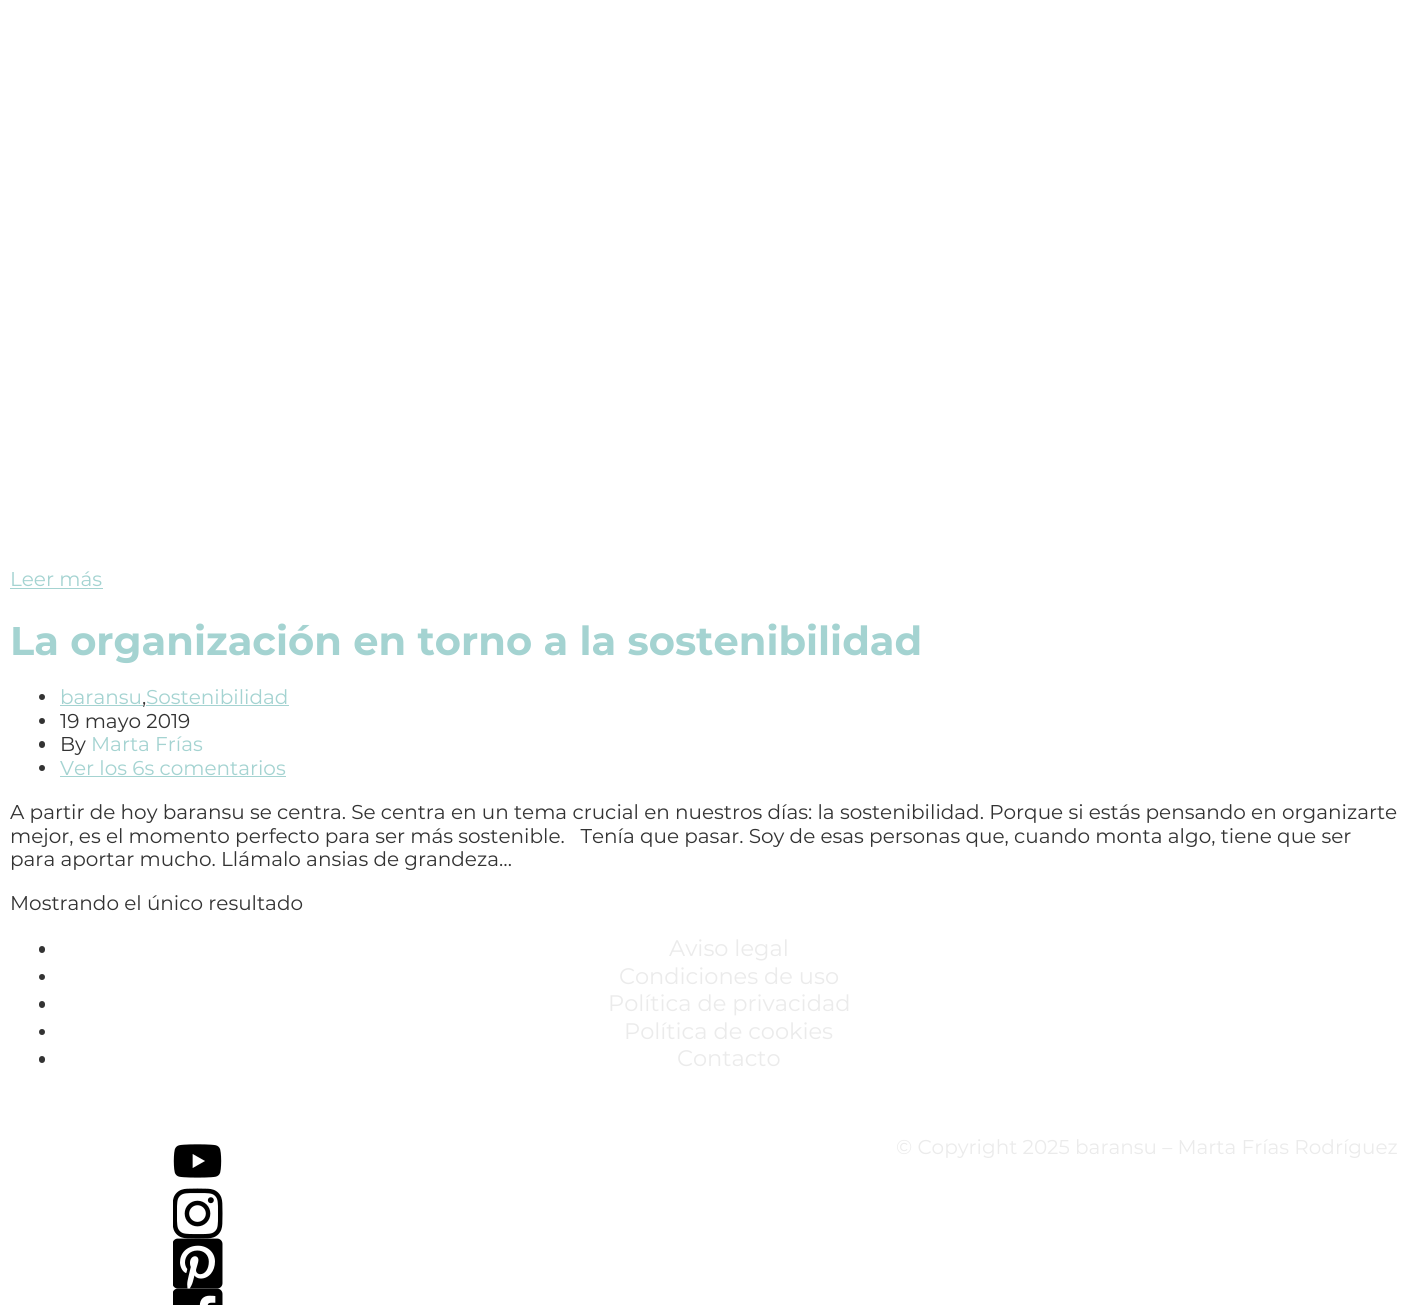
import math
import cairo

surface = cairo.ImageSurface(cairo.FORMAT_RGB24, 1407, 1305)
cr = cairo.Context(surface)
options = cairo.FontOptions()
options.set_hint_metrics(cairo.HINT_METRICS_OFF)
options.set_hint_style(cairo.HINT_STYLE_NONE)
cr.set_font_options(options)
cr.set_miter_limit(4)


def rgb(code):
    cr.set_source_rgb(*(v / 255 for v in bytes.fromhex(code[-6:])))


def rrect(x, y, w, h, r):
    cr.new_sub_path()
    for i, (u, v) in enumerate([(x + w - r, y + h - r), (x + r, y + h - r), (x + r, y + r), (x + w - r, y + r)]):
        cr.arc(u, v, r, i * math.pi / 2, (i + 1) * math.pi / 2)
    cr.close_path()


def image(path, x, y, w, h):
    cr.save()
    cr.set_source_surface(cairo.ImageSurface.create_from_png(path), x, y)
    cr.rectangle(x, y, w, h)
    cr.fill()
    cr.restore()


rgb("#ffffff")
cr.paint()
rgb("#a4d3d1")
cr.rectangle(10, 588, 93, 1)
cr.fill()
rgb("#333333")
cr.arc(42, 697, 3, 0, 2 * math.pi)
cr.fill()
rgb("#a4d3d1")
cr.rectangle(60, 705, 83, 1)
cr.fill()
cr.rectangle(146, 705, 143, 1)
cr.fill()
rgb("#333333")
cr.arc(42, 721, 3, 0, 2 * math.pi)
cr.fill()
rrect(39, 741, 6, 7, 3)
cr.fill()
cr.arc(42, 768, 3, 0, 2 * math.pi)
cr.fill()
rgb("#a4d3d1")
cr.rectangle(60, 776, 226, 1)
cr.fill()
rgb("#333333")
rrect(39, 946, 6, 7, 3)
cr.fill()
cr.arc(42, 977, 3, 0, 2 * math.pi)
cr.fill()
rrect(39, 1001, 6, 7, 3)
cr.fill()
cr.arc(42, 1032, 3, 0, 2 * math.pi)
cr.fill()
rrect(39, 1056, 6, 7, 3)
cr.fill()
image("img/1.png", 173, 1144, 49, 34)
image("img/2.png", 173, 1188, 50, 51)
image("img/3.png", 173, 1238, 50, 51)
image("img/4.png", 173, 1288, 50, 17)
cr.select_font_face("Montserrat")
cr.set_font_size(20)
rgb("#a4d3d1")
cr.move_to(10, 586)
cr.show_text("Leer más")
cr.select_font_face("Montserrat", cairo.FONT_SLANT_NORMAL, cairo.FONT_WEIGHT_BOLD)
cr.set_font_size(40)
cr.move_to(10, 655)
cr.show_text("La organización en torno a la sostenibilidad")
cr.select_font_face("Montserrat")
cr.set_font_size(20)
cr.move_to(60, 704)
cr.show_text("baransu")
cr.move_to(146, 704)
cr.show_text("Sostenibilidad")
rgb("#333333")
for x, y, s in [
    (142, 704, ","),
    (60, 728, "19 mayo 2019"),
    (60, 751, "By"),
]:
    cr.move_to(x, y)
    cr.show_text(s)
rgb("#a4d3d1")
cr.move_to(91, 751)
cr.show_text("Marta Frías")
cr.move_to(60, 775)
cr.show_text("Ver los 6s comentarios")
rgb("#333333")
for x, y, s in [
    (10, 819, "A partir de hoy baransu se centra. Se centra en un tema crucial en nuestros días: la sostenibilidad. Porque si estás pensando en organizarte"),
    (10, 843, "mejor, es el momento perfecto para ser más sostenible.   Tenía que pasar. Soy de esas personas que, cuando monta algo, tiene que ser"),
    (10, 866, "para aportar mucho. Llámalo ansias de grandeza…"),
    (10, 910, "Mostrando el único resultado"),
]:
    cr.move_to(x, y)
    cr.show_text(s)
cr.set_font_size(22.5)
rgb("#ebebeb")
for x, y, s in [
    (669, 956, "Aviso legal"),
    (619, 984, "Condiciones de uso"),
    (608, 1011, "Política de privacidad"),
    (624, 1039, "Política de cookies"),
    (677, 1066, "Contacto"),
]:
    cr.move_to(x, y)
    cr.show_text(s)
cr.set_font_size(20)
cr.move_to(896, 1154)
cr.show_text("© Copyright 2025 baransu – Marta Frías Rodríguez")
surface.write_to_png("page.png")
